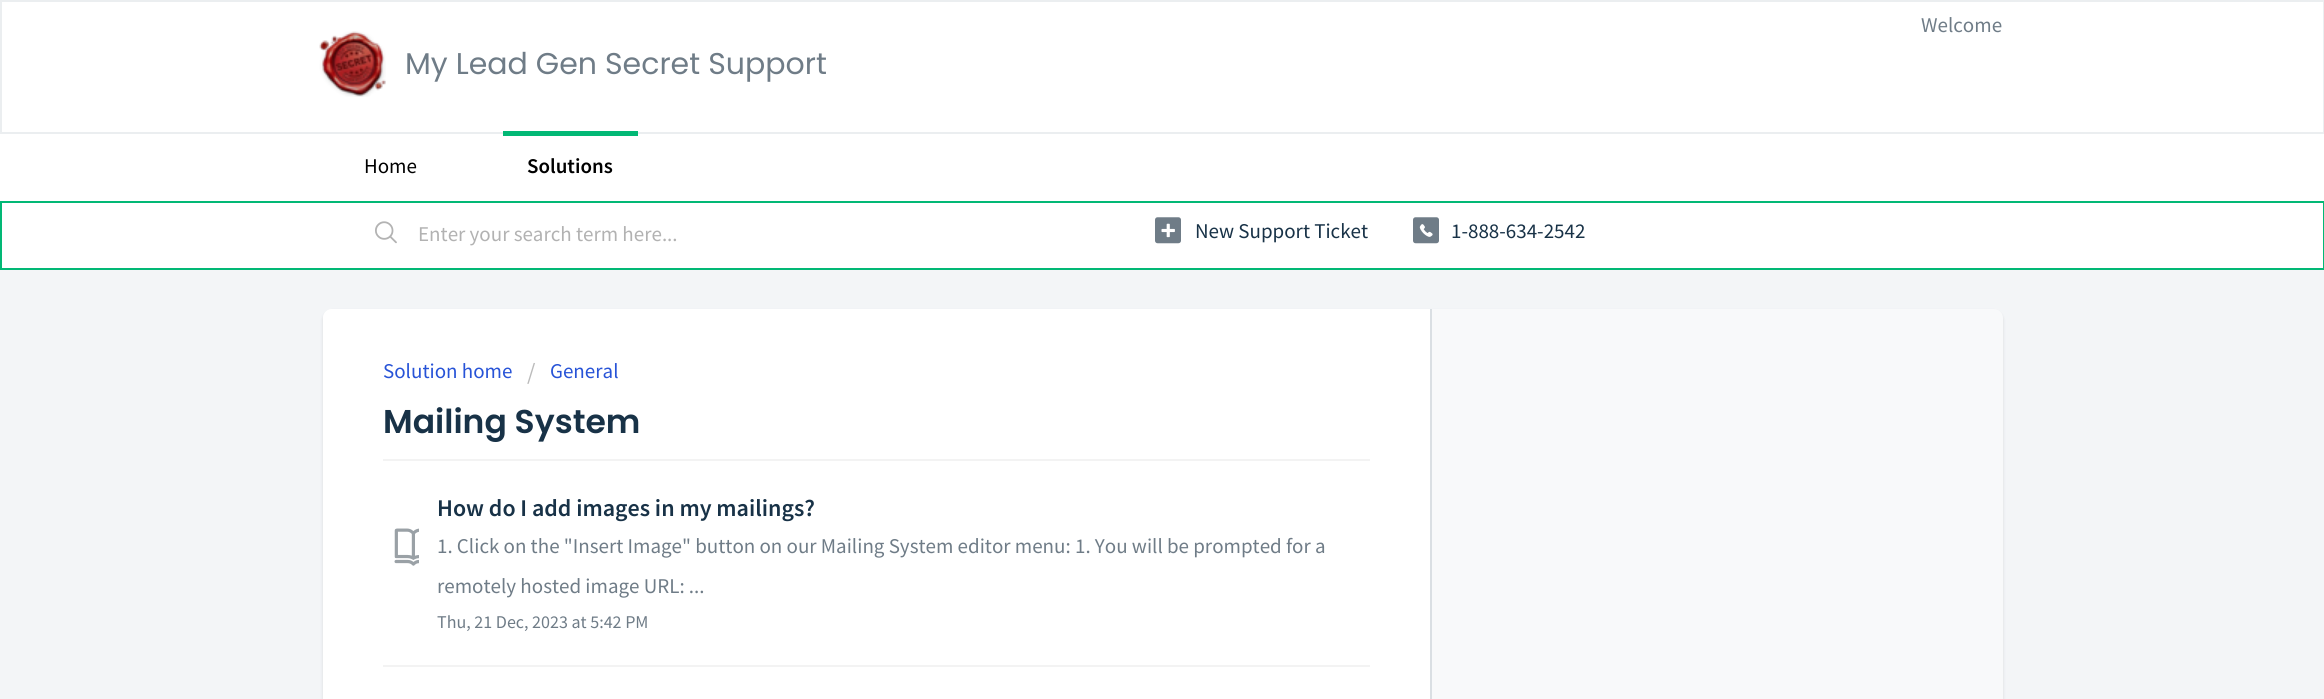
import math
import cairo

surface = cairo.ImageSurface(cairo.FORMAT_RGB24, 2324, 699)
cr = cairo.Context(surface)
options = cairo.FontOptions()
options.set_hint_metrics(cairo.HINT_METRICS_OFF)
options.set_hint_style(cairo.HINT_STYLE_NONE)
cr.set_font_options(options)
cr.set_miter_limit(4)


def rgb(code):
    cr.set_source_rgb(*(v / 255 for v in bytes.fromhex(code[-6:])))


def rrect(x, y, w, h, r):
    cr.new_sub_path()
    for i, (u, v) in enumerate([(x + w - r, y + h - r), (x + r, y + h - r), (x + r, y + r), (x + w - r, y + r)]):
        cr.arc(u, v, r, i * math.pi / 2, (i + 1) * math.pi / 2)
    cr.close_path()


def soft_shadow(x, y, w, h, r, blur, alpha):
    cr.push_group_with_content(cairo.CONTENT_ALPHA)
    cr.set_operator(cairo.OPERATOR_SOURCE)
    for i in range(15, -16, -2):
        e = blur * i / 6
        if min(w, h) + 2 * e > 0:
            cr.set_source_rgba(0, 0, 0, alpha * math.erfc((i - 1) / 8.5) / 2)
            rrect(x - e, y - e, w + 2 * e, h + 2 * e, max(0, min(r + e + blur * .6, min(w, h) / 2 + e)))
            cr.fill()
    cr.mask(cr.pop_group())


def image(path, x, y, w, h):
    cr.save()
    cr.set_source_surface(cairo.ImageSurface.create_from_png(path), x, y)
    cr.rectangle(x, y, w, h)
    cr.fill()
    cr.restore()


rgb("#f3f5f7")
cr.paint()
rgb("#ffffff")
cr.rectangle(1, 1, 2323, 132)
cr.fill_preserve()
rgb("#ebeef0")
cr.stroke()
image("img/1.png", 319, 31, 67, 66)
rgb("#ffffff")
cr.rectangle(0, 134, 2324, 67)
cr.fill()
rgb("#02b875")
cr.rectangle(503, 131, 135, 5)
cr.fill()
rgb("#ffffff")
cr.rectangle(1, 202, 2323, 67)
cr.fill_preserve()
rgb("#02b875")
cr.stroke()
image("img/2.png", 375, 221, 22, 23)
image("img/3.png", 1155, 217, 26, 27)
image("img/4.png", 1413, 217, 26, 27)
rgb("#3f3f44")
soft_shadow(323, 311, 1680, 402, 9, 1.5, 0.15)
rgb("#f8f9fa")
rrect(323, 309, 1680, 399, 9)
cr.fill()
rgb("#ffffff")
cr.new_path()
cr.move_to(332, 309)
cr.line_to(1431, 309)
cr.line_to(1431, 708)
cr.line_to(332, 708)
cr.curve_to(327, 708, 323, 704, 323, 699)
cr.line_to(323, 318)
cr.curve_to(323, 313, 327, 309, 332, 309)
cr.close_path()
cr.fill()
rgb("#dadfe3")
cr.rectangle(1430, 309, 2, 390)
cr.fill()
rgb("#f3f3f3")
cr.rectangle(383, 459, 987, 2)
cr.fill()
image("img/5.png", 394, 528, 25, 38)
cr.rectangle(383, 665, 987, 2)
cr.fill()
cr.select_font_face("Source Sans Pro")
cr.set_font_size(21)
rgb("#6f7c87")
cr.move_to(1921, 32)
cr.show_text("Welcome")
cr.select_font_face("Poppins")
cr.set_font_size(30)
cr.move_to(405, 74)
cr.show_text("My Lead Gen Secret Support")
cr.select_font_face("Source Sans Pro")
cr.set_font_size(21)
rgb("#000000")
cr.move_to(364, 173)
cr.show_text("Home")
cr.select_font_face("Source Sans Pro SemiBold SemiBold")
cr.move_to(527, 173)
cr.show_text("Solutions")
cr.select_font_face("Source Sans Pro")
rgb("#b2b2b2")
cr.move_to(418, 241)
cr.show_text("Enter your search term here...")
rgb("#183247")
cr.move_to(1195, 238)
cr.show_text("New Support Ticket")
cr.move_to(1451, 238)
cr.show_text("1-888-634-2542")
rgb("#2753d7")
cr.move_to(383, 378)
cr.show_text("Solution home")
cr.set_font_size(24)
rgb("#bbbbbb")
cr.move_to(527, 380)
cr.show_text("/")
cr.set_font_size(21)
rgb("#2753d7")
cr.move_to(550, 378)
cr.show_text("General")
cr.select_font_face("Poppins SemiBold")
cr.set_font_size(33)
rgb("#183247")
cr.move_to(383, 433)
cr.show_text("Mailing System")
cr.select_font_face("Source Sans Pro SemiBold SemiBold")
cr.set_font_size(24)
cr.move_to(437, 516)
cr.show_text("How do I add images in my mailings?")
cr.select_font_face("Source Sans Pro")
cr.set_font_size(21)
rgb("#6f7c87")
cr.move_to(437, 553)
cr.show_text("1. Click on the \"Insert Image\" button on our Mailing System editor menu: 1. You will be prompted for a")
cr.move_to(437, 593)
cr.show_text("remotely hosted image URL: ...")
cr.set_font_size(18)
cr.move_to(437, 628)
cr.show_text("Thu, 21 Dec, 2023 at 5:42 PM")
surface.write_to_png("page.png")
